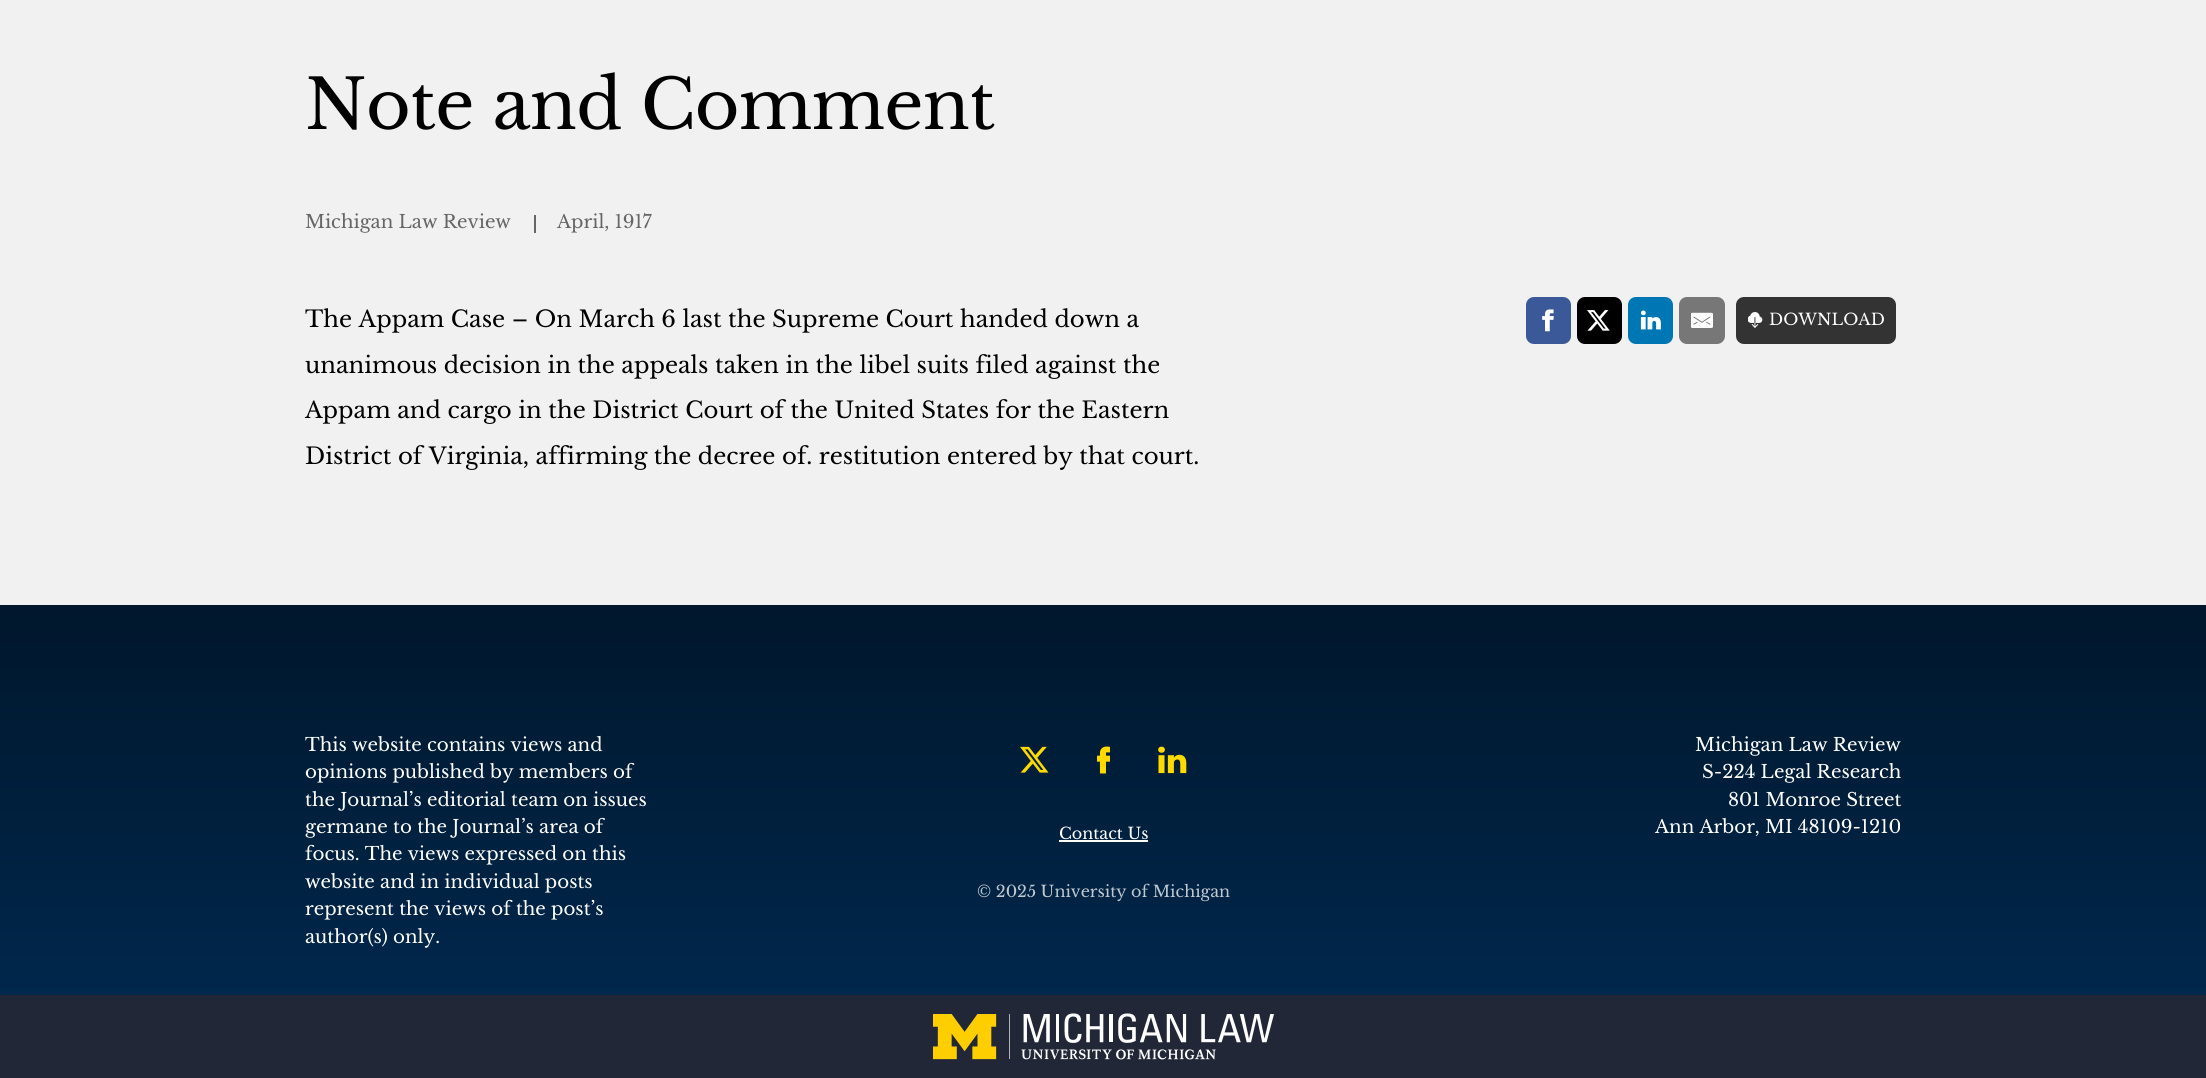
import math
import cairo

surface = cairo.ImageSurface(cairo.FORMAT_RGB24, 2206, 1078)
cr = cairo.Context(surface)
options = cairo.FontOptions()
options.set_hint_metrics(cairo.HINT_METRICS_OFF)
options.set_hint_style(cairo.HINT_STYLE_NONE)
cr.set_font_options(options)
cr.set_miter_limit(4)


def rgb(code):
    cr.set_source_rgb(*(v / 255 for v in bytes.fromhex(code[-6:])))


def tracked(x, y, s, letter, word):
    cr.move_to(x, y)
    for ch in s:
        cr.show_text(ch)
        cr.rel_move_to(letter + word * (ch == ' '), 0)


def rrect(x, y, w, h, r):
    cr.new_sub_path()
    for i, (u, v) in enumerate([(x + w - r, y + h - r), (x + r, y + h - r), (x + r, y + r), (x + w - r, y + r)]):
        cr.arc(u, v, r, i * math.pi / 2, (i + 1) * math.pi / 2)
    cr.close_path()


def image(path, x, y, w, h):
    cr.save()
    cr.set_source_surface(cairo.ImageSurface.create_from_png(path), x, y)
    cr.rectangle(x, y, w, h)
    cr.fill()
    cr.restore()


rgb("#f1f1f1")
cr.paint()
rgb("#666666")
cr.rectangle(534, 215, 2, 18)
cr.fill()
rgb("#3b5998")
rrect(1526, 297, 45, 47, 8)
cr.fill()
image("img/1.png", 1542, 309, 12, 23)
rgb("#000000")
rrect(1577, 297, 45, 47, 8)
cr.fill()
image("img/2.png", 1587, 310, 23, 21)
rgb("#0077b5")
rrect(1628, 297, 45, 47, 8)
cr.fill()
image("img/3.png", 1640, 310, 21, 20)
rgb("#777777")
rrect(1679, 297, 46, 47, 8)
cr.fill()
image("img/4.png", 1691, 312, 22, 16)
rgb("#333333")
rrect(1736, 297, 160, 47, 8)
cr.fill()
image("img/5.png", 1748, 312, 15, 16)
gradient = cairo.LinearGradient(1103, 604, 1103, 995)
gradient.add_color_stop_rgba(0, 0, 0.09, 0.173, 1)
gradient.add_color_stop_rgba(1, 0, 0.153, 0.298, 1)
cr.set_source(gradient)
cr.rectangle(0, 605, 2206, 390)
cr.fill()
image("img/6.png", 1020, 746, 29, 27)
image("img/7.png", 1097, 746, 13, 28)
image("img/8.png", 1158, 746, 29, 28)
rgb("#ffffff")
cr.rectangle(1059, 840, 89, 2)
cr.fill()
rgb("#212737")
cr.rectangle(0, 995, 2206, 83)
cr.fill()
image("img/9.png", 933, 1013, 341, 47)
cr.select_font_face("Libre Baskerville")
cr.set_font_size(68.4)
rgb("#000000")
tracked(305, 129, "Note and Comment", -0.7, 0)
cr.set_font_size(18.25)
rgb("#666666")
cr.move_to(305, 228)
cr.show_text("Michigan Law Review")
cr.move_to(557, 228)
cr.show_text("April, 1917")
cr.set_font_size(22.8)
rgb("#000000")
for x, y, s in [
    (305, 327, "The Appam Case – On March 6 last the Supreme Court handed down a"),
    (305, 373, "unanimous decision in the appeals taken in the libel suits filed against the"),
    (305, 418, "Appam and cargo in the District Court of the United States for the Eastern"),
    (305, 464, "District of Virginia, affirming the decree of. restitution entered by that court."),
]:
    cr.move_to(x, y)
    cr.show_text(s)
cr.set_font_size(16)
rgb("#ffffff")
cr.move_to(1769, 325)
cr.show_text("DOWNLOAD")
cr.set_font_size(18.25)
for x, y, s in [
    (305, 751, "This website contains views and"),
    (305, 778, "opinions published by members of"),
    (305, 806, "the Journal’s editorial team on issues"),
    (305, 833, "germane to the Journal’s area of"),
    (305, 860, "focus. The views expressed on this"),
    (305, 888, "website and in individual posts"),
    (305, 915, "represent the views of the post’s"),
    (305, 943, "author(s) only."),
    (1695, 751, "Michigan Law Review"),
    (1702, 778, "S-224 Legal Research"),
    (1728, 806, "801 Monroe Street"),
    (1655, 833, "Ann Arbor, MI 48109-1210"),
]:
    cr.move_to(x, y)
    cr.show_text(s)
cr.set_font_size(16)
cr.move_to(1059, 839)
cr.show_text("Contact Us")
rgb("#bfc8d0")
cr.move_to(977, 897)
cr.show_text("© 2025 University of Michigan")
surface.write_to_png("page.png")
